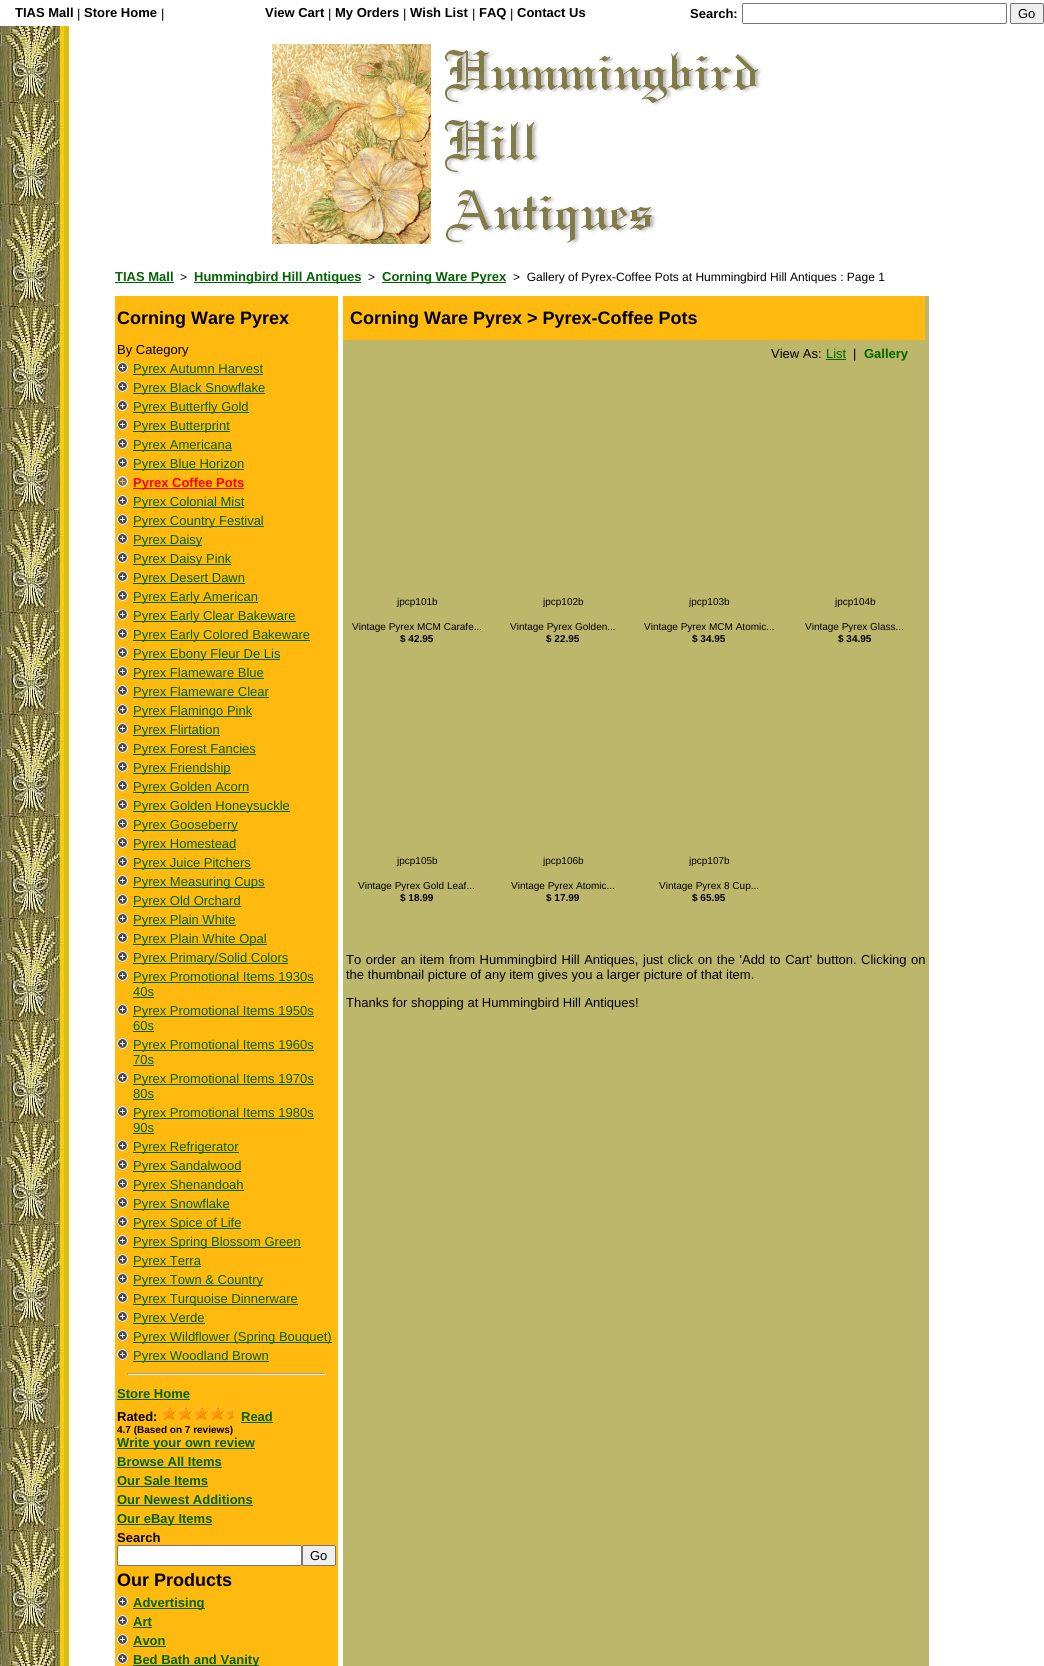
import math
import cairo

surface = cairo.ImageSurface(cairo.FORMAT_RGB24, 1044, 1666)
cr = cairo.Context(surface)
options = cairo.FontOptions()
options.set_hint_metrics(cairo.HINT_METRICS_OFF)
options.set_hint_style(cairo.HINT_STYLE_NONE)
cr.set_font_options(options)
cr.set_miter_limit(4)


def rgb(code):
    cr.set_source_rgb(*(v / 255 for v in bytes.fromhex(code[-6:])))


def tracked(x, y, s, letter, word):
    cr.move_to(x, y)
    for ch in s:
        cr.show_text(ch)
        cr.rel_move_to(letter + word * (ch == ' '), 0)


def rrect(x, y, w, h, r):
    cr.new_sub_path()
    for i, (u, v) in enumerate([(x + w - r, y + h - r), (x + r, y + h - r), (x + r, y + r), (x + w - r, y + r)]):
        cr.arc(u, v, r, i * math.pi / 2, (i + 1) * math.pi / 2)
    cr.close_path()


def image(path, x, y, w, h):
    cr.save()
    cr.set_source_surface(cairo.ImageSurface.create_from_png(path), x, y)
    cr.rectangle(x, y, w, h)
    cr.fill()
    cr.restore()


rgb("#ffffff")
cr.paint()
image("img/1.png", 0, 26, 71, 1640)
rrect(742.5, 3.5, 264, 20, 1.5)
rgb("#767676")
cr.set_line_width(1)
cr.stroke()
rgb("#efefef")
rrect(1010.5, 3.5, 33, 20, 1.5)
cr.fill_preserve()
rgb("#767676")
cr.stroke()
image("img/2.png", 272, 44, 491, 200)
for x, y, w, h, color in [
    (115, 282, 59, 1, "#006400"),
    (194, 282, 167, 1, "#006400"),
    (382, 282, 124, 1, "#006400"),
    (115, 296, 223, 1370, "#ffb90f"),
]:
    rgb(color)
    cr.rectangle(x, y, w, h)
    cr.fill()
image("img/3.png", 117, 362, 11, 11)
rgb("#006400")
cr.rectangle(133, 374, 130, 1)
cr.fill()
image("img/3.png", 117, 381, 11, 11)
cr.rectangle(133, 393, 132, 1)
cr.fill()
image("img/3.png", 117, 400, 11, 11)
cr.rectangle(133, 412, 116, 1)
cr.fill()
image("img/3.png", 117, 419, 11, 11)
cr.rectangle(133, 431, 97, 1)
cr.fill()
image("img/3.png", 117, 438, 11, 11)
cr.rectangle(133, 450, 99, 1)
cr.fill()
image("img/3.png", 117, 457, 11, 11)
cr.rectangle(133, 469, 111, 1)
cr.fill()
image("img/4.png", 117, 476, 11, 11)
rgb("#ff0000")
cr.rectangle(133, 488, 111, 1)
cr.fill()
image("img/3.png", 117, 495, 11, 11)
rgb("#006400")
cr.rectangle(133, 507, 111, 1)
cr.fill()
image("img/3.png", 117, 514, 11, 11)
cr.rectangle(133, 526, 131, 1)
cr.fill()
image("img/3.png", 117, 533, 11, 11)
cr.rectangle(133, 545, 69, 1)
cr.fill()
image("img/3.png", 117, 552, 11, 11)
cr.rectangle(133, 564, 98, 1)
cr.fill()
image("img/3.png", 117, 571, 11, 11)
cr.rectangle(133, 583, 112, 1)
cr.fill()
image("img/3.png", 117, 590, 11, 11)
cr.rectangle(133, 602, 125, 1)
cr.fill()
image("img/3.png", 117, 609, 11, 11)
cr.rectangle(133, 621, 163, 1)
cr.fill()
image("img/3.png", 117, 628, 11, 11)
cr.rectangle(133, 640, 177, 1)
cr.fill()
image("img/3.png", 117, 647, 11, 11)
cr.rectangle(133, 659, 147, 1)
cr.fill()
image("img/3.png", 117, 666, 11, 11)
cr.rectangle(133, 678, 131, 1)
cr.fill()
image("img/3.png", 117, 685, 11, 11)
cr.rectangle(133, 697, 136, 1)
cr.fill()
image("img/3.png", 117, 704, 11, 11)
cr.rectangle(133, 716, 119, 1)
cr.fill()
image("img/3.png", 117, 723, 11, 11)
cr.rectangle(133, 735, 87, 1)
cr.fill()
image("img/3.png", 117, 742, 11, 11)
cr.rectangle(133, 754, 123, 1)
cr.fill()
image("img/3.png", 117, 761, 11, 11)
cr.rectangle(133, 773, 98, 1)
cr.fill()
image("img/3.png", 117, 780, 11, 11)
cr.rectangle(133, 792, 116, 1)
cr.fill()
image("img/3.png", 117, 799, 11, 11)
cr.rectangle(133, 811, 157, 1)
cr.fill()
image("img/3.png", 117, 818, 11, 11)
cr.rectangle(133, 830, 105, 1)
cr.fill()
image("img/3.png", 117, 837, 11, 11)
cr.rectangle(133, 849, 103, 1)
cr.fill()
image("img/3.png", 117, 856, 11, 11)
cr.rectangle(133, 868, 118, 1)
cr.fill()
image("img/3.png", 117, 875, 11, 11)
cr.rectangle(133, 887, 132, 1)
cr.fill()
image("img/3.png", 117, 894, 11, 11)
cr.rectangle(133, 906, 108, 1)
cr.fill()
image("img/3.png", 117, 913, 11, 11)
cr.rectangle(133, 925, 103, 1)
cr.fill()
image("img/3.png", 117, 932, 11, 11)
cr.rectangle(133, 944, 134, 1)
cr.fill()
image("img/3.png", 117, 951, 11, 11)
cr.rectangle(133, 963, 155, 1)
cr.fill()
image("img/3.png", 117, 970, 11, 11)
cr.rectangle(133, 982, 181, 1)
cr.fill()
cr.rectangle(133, 997, 21, 1)
cr.fill()
image("img/3.png", 117, 1004, 11, 11)
cr.rectangle(133, 1016, 181, 1)
cr.fill()
cr.rectangle(133, 1031, 21, 1)
cr.fill()
image("img/3.png", 117, 1038, 11, 11)
cr.rectangle(133, 1050, 181, 1)
cr.fill()
cr.rectangle(133, 1065, 21, 1)
cr.fill()
image("img/3.png", 117, 1072, 11, 11)
cr.rectangle(133, 1084, 181, 1)
cr.fill()
cr.rectangle(133, 1099, 21, 1)
cr.fill()
image("img/3.png", 117, 1106, 11, 11)
cr.rectangle(133, 1118, 181, 1)
cr.fill()
cr.rectangle(133, 1133, 21, 1)
cr.fill()
image("img/3.png", 117, 1140, 11, 11)
cr.rectangle(133, 1152, 106, 1)
cr.fill()
image("img/3.png", 117, 1159, 11, 11)
cr.rectangle(133, 1171, 108, 1)
cr.fill()
image("img/3.png", 117, 1178, 11, 11)
cr.rectangle(133, 1190, 111, 1)
cr.fill()
image("img/3.png", 117, 1197, 11, 11)
cr.rectangle(133, 1209, 97, 1)
cr.fill()
image("img/3.png", 117, 1216, 11, 11)
cr.rectangle(133, 1228, 108, 1)
cr.fill()
image("img/3.png", 117, 1235, 11, 11)
cr.rectangle(133, 1247, 168, 1)
cr.fill()
image("img/3.png", 117, 1254, 11, 11)
cr.rectangle(133, 1266, 68, 1)
cr.fill()
image("img/3.png", 117, 1273, 11, 11)
cr.rectangle(133, 1285, 130, 1)
cr.fill()
image("img/3.png", 117, 1292, 11, 11)
cr.rectangle(133, 1304, 165, 1)
cr.fill()
image("img/3.png", 117, 1311, 11, 11)
cr.rectangle(133, 1323, 72, 1)
cr.fill()
image("img/3.png", 117, 1330, 11, 11)
cr.rectangle(133, 1342, 199, 1)
cr.fill()
image("img/3.png", 117, 1349, 11, 11)
for x, y, w, h, color in [
    (133, 1361, 136, 1, "#006400"),
    (127, 1373, 199, 1, "#9f9f9f"),
    (325, 1373, 1, 2, "#eeeeee"),
    (127, 1374, 199, 1, "#eeeeee"),
    (127, 1373, 1, 2, "#9f9f9f"),
    (117, 1399, 73, 1, "#006400"),
]:
    rgb(color)
    cr.rectangle(x, y, w, h)
    cr.fill()
image("img/5.png", 162, 1406, 14, 14)
image("img/5.png", 178, 1406, 14, 14)
image("img/5.png", 194, 1406, 14, 14)
image("img/5.png", 210, 1406, 14, 14)
image("img/6.png", 226, 1406, 7, 14)
for x, y, w, h, color in [
    (241, 1422, 32, 1, "#006400"),
    (117, 1448, 138, 1, "#006400"),
    (117, 1467, 105, 1, "#006400"),
    (117, 1486, 91, 1, "#006400"),
    (117, 1505, 136, 1, "#006400"),
    (117, 1524, 95, 1, "#006400"),
]:
    rgb(color)
    cr.rectangle(x, y, w, h)
    cr.fill()
rgb("#ffffff")
rrect(117.5, 1545.5, 184, 20, 1.5)
cr.fill_preserve()
rgb("#767676")
cr.stroke()
rgb("#efefef")
rrect(302.5, 1545.5, 33, 20, 1.5)
cr.fill_preserve()
rgb("#767676")
cr.stroke()
image("img/3.png", 117, 1596, 11, 11)
rgb("#006400")
cr.rectangle(133, 1608, 72, 1)
cr.fill()
image("img/3.png", 117, 1615, 11, 11)
cr.rectangle(133, 1627, 19, 1)
cr.fill()
image("img/3.png", 117, 1634, 11, 11)
cr.rectangle(133, 1646, 33, 1)
cr.fill()
image("img/3.png", 117, 1653, 11, 11)
for x, y, w, h, color in [
    (133, 1665, 126, 1, "#006400"),
    (343, 296, 586, 1370, "#bdb76b"),
    (343, 296, 582, 44, "#ffb90f"),
    (826, 359, 20, 1, "#006400"),
]:
    rgb(color)
    cr.rectangle(x, y, w, h)
    cr.fill()
cr.select_font_face("Liberation Sans", cairo.FONT_SLANT_NORMAL, cairo.FONT_WEIGHT_BOLD)
cr.set_font_size(13)
rgb("#000000")
cr.move_to(15, 17)
cr.show_text("TIAS Mall")
cr.select_font_face("Liberation Sans")
cr.move_to(77, 18)
cr.show_text("|")
cr.select_font_face("Liberation Sans", cairo.FONT_SLANT_NORMAL, cairo.FONT_WEIGHT_BOLD)
cr.move_to(84, 17)
cr.show_text("Store Home")
cr.select_font_face("Liberation Sans")
cr.move_to(161, 18)
cr.show_text("|")
cr.select_font_face("Liberation Sans", cairo.FONT_SLANT_NORMAL, cairo.FONT_WEIGHT_BOLD)
cr.move_to(265, 17)
cr.show_text("View Cart")
cr.select_font_face("Liberation Sans")
cr.move_to(328, 18)
cr.show_text("|")
cr.select_font_face("Liberation Sans", cairo.FONT_SLANT_NORMAL, cairo.FONT_WEIGHT_BOLD)
cr.move_to(335, 17)
cr.show_text("My Orders")
cr.select_font_face("Liberation Sans")
cr.move_to(403, 18)
cr.show_text("|")
cr.select_font_face("Liberation Sans", cairo.FONT_SLANT_NORMAL, cairo.FONT_WEIGHT_BOLD)
cr.move_to(410, 17)
cr.show_text("Wish List")
cr.select_font_face("Liberation Sans")
cr.move_to(472, 18)
cr.show_text("|")
cr.select_font_face("Liberation Sans", cairo.FONT_SLANT_NORMAL, cairo.FONT_WEIGHT_BOLD)
cr.move_to(479, 17)
cr.show_text("FAQ")
cr.select_font_face("Liberation Sans")
cr.move_to(510, 18)
cr.show_text("|")
cr.select_font_face("Liberation Sans", cairo.FONT_SLANT_NORMAL, cairo.FONT_WEIGHT_BOLD)
cr.move_to(517, 17)
cr.show_text("Contact Us")
cr.move_to(690, 18)
cr.show_text("Search:")
cr.select_font_face("Liberation Sans")
cr.move_to(1018, 18)
cr.show_text("Go")
cr.select_font_face("Liberation Sans", cairo.FONT_SLANT_NORMAL, cairo.FONT_WEIGHT_BOLD)
rgb("#006400")
cr.move_to(115, 281)
cr.show_text("TIAS Mall")
cr.select_font_face("Liberation Sans")
cr.set_font_size(12)
rgb("#000000")
cr.move_to(180, 281)
cr.show_text(">")
cr.select_font_face("Liberation Sans", cairo.FONT_SLANT_NORMAL, cairo.FONT_WEIGHT_BOLD)
cr.set_font_size(13)
rgb("#006400")
cr.move_to(194, 281)
cr.show_text("Hummingbird Hill Antiques")
cr.select_font_face("Liberation Sans")
cr.set_font_size(12)
rgb("#000000")
cr.move_to(368, 281)
cr.show_text(">")
cr.select_font_face("Liberation Sans", cairo.FONT_SLANT_NORMAL, cairo.FONT_WEIGHT_BOLD)
cr.set_font_size(13)
rgb("#006400")
cr.move_to(382, 281)
cr.show_text("Corning Ware Pyrex")
cr.select_font_face("Liberation Sans")
cr.set_font_size(12)
rgb("#000000")
cr.move_to(513, 281)
cr.show_text(">  Gallery of Pyrex-Coffee Pots at Hummingbird Hill Antiques : Page 1")
cr.select_font_face("Liberation Sans", cairo.FONT_SLANT_NORMAL, cairo.FONT_WEIGHT_BOLD)
cr.set_font_size(18)
cr.move_to(117, 324)
cr.show_text("Corning Ware Pyrex")
cr.select_font_face("Liberation Sans")
cr.set_font_size(13)
cr.move_to(117, 354)
cr.show_text("By Category")
rgb("#006400")
for x, y, s in [
    (133, 373, "Pyrex Autumn Harvest"),
    (133, 392, "Pyrex Black Snowflake"),
    (133, 411, "Pyrex Butterfly Gold"),
    (133, 430, "Pyrex Butterprint"),
    (133, 449, "Pyrex Americana"),
    (133, 468, "Pyrex Blue Horizon"),
]:
    cr.move_to(x, y)
    cr.show_text(s)
cr.select_font_face("Liberation Sans", cairo.FONT_SLANT_NORMAL, cairo.FONT_WEIGHT_BOLD)
rgb("#ff0000")
cr.move_to(133, 487)
cr.show_text("Pyrex Coffee Pots")
cr.select_font_face("Liberation Sans")
rgb("#006400")
for x, y, s in [
    (133, 506, "Pyrex Colonial Mist"),
    (133, 525, "Pyrex Country Festival"),
    (133, 544, "Pyrex Daisy"),
    (133, 563, "Pyrex Daisy Pink"),
    (133, 582, "Pyrex Desert Dawn"),
    (133, 601, "Pyrex Early American"),
    (133, 620, "Pyrex Early Clear Bakeware"),
    (133, 639, "Pyrex Early Colored Bakeware"),
    (133, 658, "Pyrex Ebony Fleur De Lis"),
    (133, 677, "Pyrex Flameware Blue"),
    (133, 696, "Pyrex Flameware Clear"),
    (133, 715, "Pyrex Flamingo Pink"),
    (133, 734, "Pyrex Flirtation"),
    (133, 753, "Pyrex Forest Fancies"),
    (133, 772, "Pyrex Friendship"),
    (133, 791, "Pyrex Golden Acorn"),
    (133, 810, "Pyrex Golden Honeysuckle"),
    (133, 829, "Pyrex Gooseberry"),
    (133, 848, "Pyrex Homestead"),
    (133, 867, "Pyrex Juice Pitchers"),
    (133, 886, "Pyrex Measuring Cups"),
    (133, 905, "Pyrex Old Orchard"),
    (133, 924, "Pyrex Plain White"),
    (133, 943, "Pyrex Plain White Opal"),
    (133, 962, "Pyrex Primary/Solid Colors"),
    (133, 981, "Pyrex Promotional Items 1930s"),
    (133, 996, "40s"),
    (133, 1015, "Pyrex Promotional Items 1950s"),
    (133, 1030, "60s"),
    (133, 1049, "Pyrex Promotional Items 1960s"),
    (133, 1064, "70s"),
    (133, 1083, "Pyrex Promotional Items 1970s"),
    (133, 1098, "80s"),
    (133, 1117, "Pyrex Promotional Items 1980s"),
    (133, 1132, "90s"),
    (133, 1151, "Pyrex Refrigerator"),
    (133, 1170, "Pyrex Sandalwood"),
    (133, 1189, "Pyrex Shenandoah"),
    (133, 1208, "Pyrex Snowflake"),
    (133, 1227, "Pyrex Spice of Life"),
    (133, 1246, "Pyrex Spring Blossom Green"),
    (133, 1265, "Pyrex Terra"),
    (133, 1284, "Pyrex Town & Country"),
    (133, 1303, "Pyrex Turquoise Dinnerware"),
    (133, 1322, "Pyrex Verde"),
    (133, 1341, "Pyrex Wildflower (Spring Bouquet)"),
    (133, 1360, "Pyrex Woodland Brown"),
]:
    cr.move_to(x, y)
    cr.show_text(s)
cr.select_font_face("Liberation Sans", cairo.FONT_SLANT_NORMAL, cairo.FONT_WEIGHT_BOLD)
cr.move_to(117, 1398)
cr.show_text("Store Home")
rgb("#000000")
cr.move_to(117, 1421)
cr.show_text("Rated:")
rgb("#006400")
cr.move_to(241, 1421)
cr.show_text("Read")
cr.set_font_size(10)
rgb("#000000")
cr.move_to(117, 1433)
cr.show_text("4.7 (Based on 7 reviews)")
cr.set_font_size(13)
rgb("#006400")
for x, y, s in [
    (117, 1447, "Write your own review"),
    (117, 1466, "Browse All Items"),
    (117, 1485, "Our Sale Items"),
    (117, 1504, "Our Newest Additions"),
    (117, 1523, "Our eBay Items"),
]:
    cr.move_to(x, y)
    cr.show_text(s)
rgb("#000000")
cr.move_to(117, 1542)
cr.show_text("Search")
cr.select_font_face("Liberation Sans")
cr.move_to(310, 1560)
cr.show_text("Go")
cr.select_font_face("Liberation Sans", cairo.FONT_SLANT_NORMAL, cairo.FONT_WEIGHT_BOLD)
cr.set_font_size(18)
cr.move_to(117, 1586)
cr.show_text("Our Products")
cr.set_font_size(13)
rgb("#006400")
for x, y, s in [
    (133, 1607, "Advertising"),
    (133, 1626, "Art"),
    (133, 1645, "Avon"),
    (133, 1664, "Bed Bath and Vanity"),
]:
    cr.move_to(x, y)
    cr.show_text(s)
cr.set_font_size(18)
rgb("#000000")
cr.move_to(350, 324)
cr.show_text("Corning Ware Pyrex > Pyrex-Coffee Pots")
cr.select_font_face("Liberation Sans")
cr.set_font_size(13)
cr.move_to(771, 358)
cr.show_text("View As:")
rgb("#006400")
cr.move_to(826, 358)
cr.show_text("List")
rgb("#000000")
cr.move_to(853, 358)
cr.show_text("|")
cr.select_font_face("Liberation Sans", cairo.FONT_SLANT_NORMAL, cairo.FONT_WEIGHT_BOLD)
rgb("#006400")
cr.move_to(864, 358)
cr.show_text("Gallery")
cr.select_font_face("Liberation Sans")
cr.set_font_size(10)
rgb("#000000")
cr.move_to(397, 605)
cr.show_text("jpcp101b")
cr.move_to(352, 630)
cr.show_text("Vintage Pyrex MCM Carafe...")
cr.select_font_face("Liberation Sans", cairo.FONT_SLANT_NORMAL, cairo.FONT_WEIGHT_BOLD)
cr.move_to(400, 642)
cr.show_text("$ 42.95")
cr.select_font_face("Liberation Sans")
cr.move_to(543, 605)
cr.show_text("jpcp102b")
cr.move_to(510, 630)
cr.show_text("Vintage Pyrex Golden...")
cr.select_font_face("Liberation Sans", cairo.FONT_SLANT_NORMAL, cairo.FONT_WEIGHT_BOLD)
cr.move_to(546, 642)
cr.show_text("$ 22.95")
cr.select_font_face("Liberation Sans")
cr.move_to(689, 605)
cr.show_text("jpcp103b")
cr.move_to(644, 630)
cr.show_text("Vintage Pyrex MCM Atomic...")
cr.select_font_face("Liberation Sans", cairo.FONT_SLANT_NORMAL, cairo.FONT_WEIGHT_BOLD)
cr.move_to(692, 642)
cr.show_text("$ 34.95")
cr.select_font_face("Liberation Sans")
cr.move_to(835, 605)
cr.show_text("jpcp104b")
cr.move_to(805, 630)
cr.show_text("Vintage Pyrex Glass...")
cr.select_font_face("Liberation Sans", cairo.FONT_SLANT_NORMAL, cairo.FONT_WEIGHT_BOLD)
cr.move_to(838, 642)
cr.show_text("$ 34.95")
cr.select_font_face("Liberation Sans")
cr.move_to(397, 864)
cr.show_text("jpcp105b")
cr.move_to(358, 889)
cr.show_text("Vintage Pyrex Gold Leaf...")
cr.select_font_face("Liberation Sans", cairo.FONT_SLANT_NORMAL, cairo.FONT_WEIGHT_BOLD)
cr.move_to(400, 901)
cr.show_text("$ 18.99")
cr.select_font_face("Liberation Sans")
cr.move_to(543, 864)
cr.show_text("jpcp106b")
cr.move_to(511, 889)
cr.show_text("Vintage Pyrex Atomic...")
cr.select_font_face("Liberation Sans", cairo.FONT_SLANT_NORMAL, cairo.FONT_WEIGHT_BOLD)
cr.move_to(546, 901)
cr.show_text("$ 17.99")
cr.select_font_face("Liberation Sans")
cr.move_to(689, 864)
cr.show_text("jpcp107b")
cr.move_to(659, 889)
cr.show_text("Vintage Pyrex 8 Cup...")
cr.select_font_face("Liberation Sans", cairo.FONT_SLANT_NORMAL, cairo.FONT_WEIGHT_BOLD)
cr.move_to(692, 901)
cr.show_text("$ 65.95")
cr.select_font_face("Liberation Sans")
cr.set_font_size(13)
tracked(346, 964, "To order an item from Hummingbird Hill Antiques, just click on the 'Add to Cart' button.", 0, 1)
tracked(861, 964, "Clicking on", 0, 1)
cr.move_to(346, 979)
cr.show_text("the thumbnail picture of any item gives you a larger picture of that item.")
cr.move_to(346, 1007)
cr.show_text("Thanks for shopping at Hummingbird Hill Antiques!")
surface.write_to_png("page.png")
